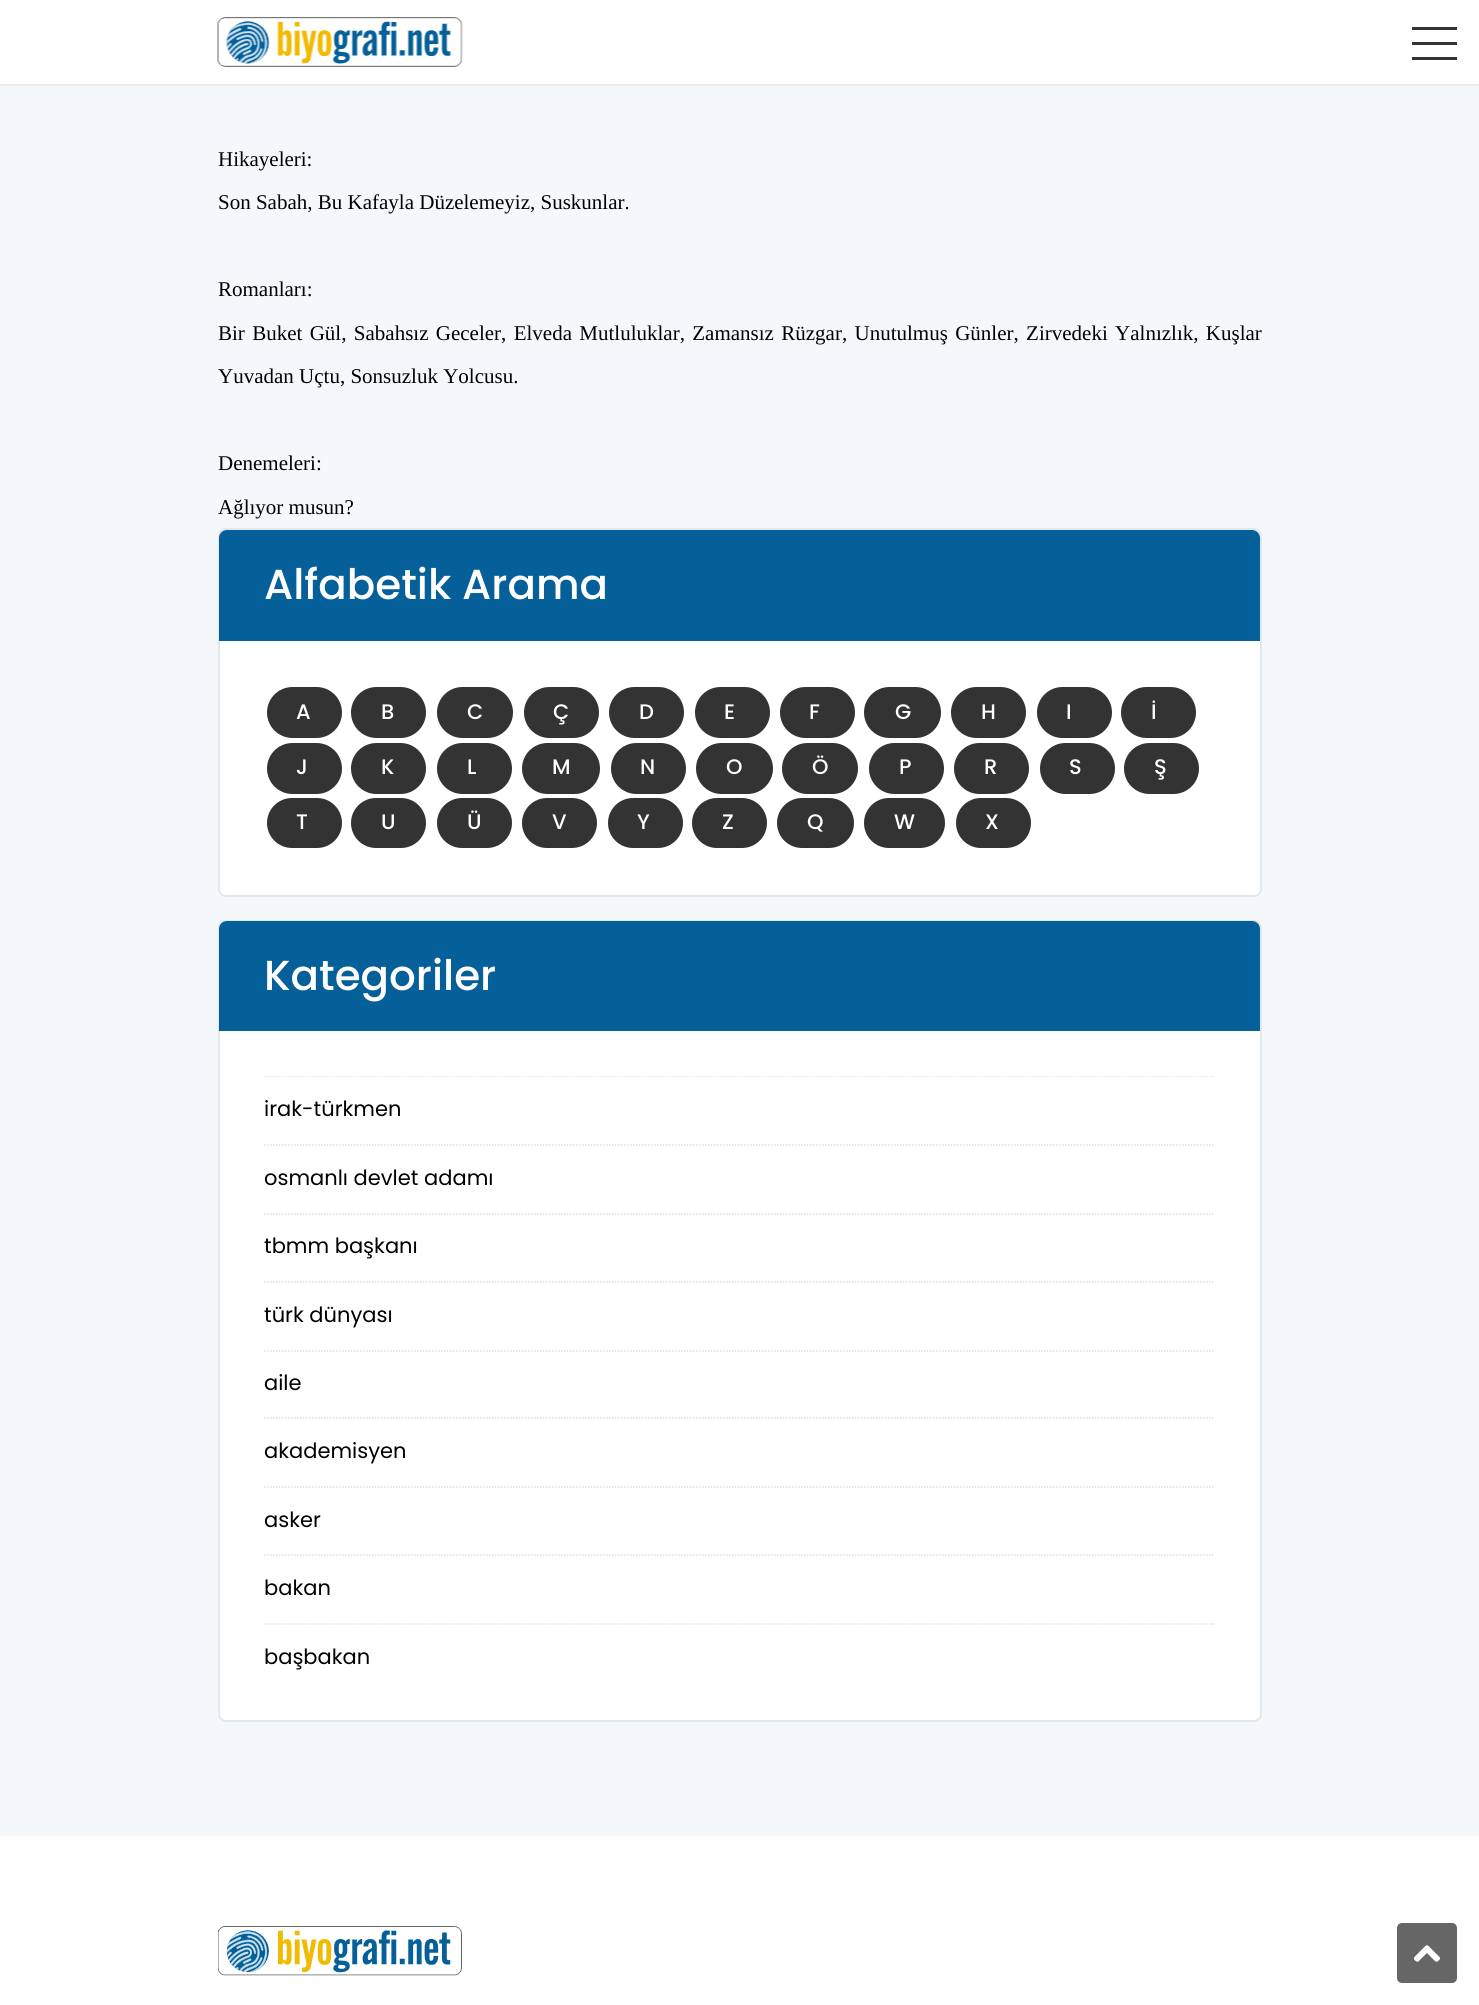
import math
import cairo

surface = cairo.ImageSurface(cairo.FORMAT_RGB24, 1479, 2005)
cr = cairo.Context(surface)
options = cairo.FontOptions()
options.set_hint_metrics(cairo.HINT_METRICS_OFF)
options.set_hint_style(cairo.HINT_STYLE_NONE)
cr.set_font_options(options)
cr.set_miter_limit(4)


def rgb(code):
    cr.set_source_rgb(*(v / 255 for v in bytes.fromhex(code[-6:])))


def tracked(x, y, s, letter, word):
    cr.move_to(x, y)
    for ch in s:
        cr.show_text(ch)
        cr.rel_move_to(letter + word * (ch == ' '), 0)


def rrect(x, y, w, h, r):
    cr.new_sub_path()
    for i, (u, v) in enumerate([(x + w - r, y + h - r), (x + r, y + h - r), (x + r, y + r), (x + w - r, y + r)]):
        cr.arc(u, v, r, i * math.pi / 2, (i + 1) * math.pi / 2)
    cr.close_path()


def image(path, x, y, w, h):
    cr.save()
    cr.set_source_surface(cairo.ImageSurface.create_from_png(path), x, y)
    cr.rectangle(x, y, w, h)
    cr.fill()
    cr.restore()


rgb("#ffffff")
cr.paint()
rgb("#ededed")
cr.rectangle(0, 84, 1479, 2)
cr.fill()
image("img/1.png", 217, 17, 246, 50)
for x, y, w, h, color in [
    (1412, 42, 45, 3, "#333333"),
    (1412, 27, 45, 3, "#333333"),
    (1412, 57, 45, 3, "#333333"),
    (0, 86, 1479, 1750, "#f5f8fa"),
]:
    rgb(color)
    cr.rectangle(x, y, w, h)
    cr.fill()
rgb("#ffffff")
rrect(219, 529, 1042, 367, 7)
cr.fill_preserve()
rgb("#e1e8ed")
cr.stroke()
rgb("#05609a")
cr.new_path()
cr.move_to(227, 530)
cr.line_to(1252, 530)
cr.curve_to(1256.5, 530, 1260, 533.5, 1260, 538)
cr.line_to(1260, 641)
cr.line_to(219, 641)
cr.line_to(219, 538)
cr.curve_to(219, 533.5, 222.5, 530, 227, 530)
cr.close_path()
cr.fill()
rgb("#333333")
rrect(267, 687, 75, 51, 25.5)
cr.fill()
rrect(351, 687, 75, 51, 25.5)
cr.fill()
rrect(437, 687, 76, 51, 25.5)
cr.fill()
rrect(524, 687, 75, 51, 25.5)
cr.fill()
rrect(609, 687, 75, 51, 25.5)
cr.fill()
rrect(695, 687, 75, 51, 25.5)
cr.fill()
rrect(780, 687, 75, 51, 25.5)
cr.fill()
rrect(864, 687, 77, 51, 25.5)
cr.fill()
rrect(951, 687, 75, 51, 25.5)
cr.fill()
rrect(1037, 687, 75, 51, 25.5)
cr.fill()
rrect(1121, 687, 75, 51, 25.5)
cr.fill()
rrect(267, 743, 75, 51, 25.5)
cr.fill()
rrect(351, 743, 75, 51, 25.5)
cr.fill()
rrect(437, 743, 75, 51, 25.5)
cr.fill()
rrect(522, 743, 78, 51, 25.5)
cr.fill()
rrect(611, 743, 75, 51, 25.5)
cr.fill()
rrect(696, 743, 77, 51, 25.5)
cr.fill()
rrect(782, 743, 76, 51, 25.5)
cr.fill()
rrect(869, 743, 75, 51, 25.5)
cr.fill()
rrect(954, 743, 75, 51, 25.5)
cr.fill()
rrect(1040, 743, 75, 51, 25.5)
cr.fill()
rrect(1124, 743, 75, 51, 25.5)
cr.fill()
rrect(267, 798, 75, 50, 25)
cr.fill()
rrect(351, 798, 75, 50, 25)
cr.fill()
rrect(437, 798, 75, 50, 25)
cr.fill()
rrect(522, 798, 75, 50, 25)
cr.fill()
rrect(608, 798, 75, 50, 25)
cr.fill()
rrect(692, 798, 75, 50, 25)
cr.fill()
rrect(777, 798, 77, 50, 25)
cr.fill()
rrect(864, 798, 81, 50, 25)
cr.fill()
rrect(956, 798, 75, 50, 25)
cr.fill()
rgb("#ffffff")
rrect(219, 921, 1042, 800, 7)
cr.fill_preserve()
rgb("#e1e8ed")
cr.stroke()
rgb("#05609a")
cr.new_path()
cr.move_to(227, 921)
cr.line_to(1252, 921)
cr.curve_to(1256.5, 921, 1260, 924.5, 1260, 929)
cr.line_to(1260, 1031)
cr.line_to(219, 1031)
cr.line_to(219, 929)
cr.curve_to(219, 924.5, 222.5, 921, 227, 921)
cr.close_path()
cr.fill()
cr.save()
cr.rectangle(264, 1076, 951, 600)
cr.clip()
cr.new_path()
cr.move_to(264, 1076)
cr.line_to(1215, 1076)
rgb("#dddddd")
cr.set_line_width(1.5)
cr.set_dash([1.5, 1.5])
cr.stroke()
cr.restore()
cr.new_path()
cr.move_to(264, 1145)
cr.line_to(1215, 1145)
rgb("#dddddd")
cr.set_line_width(1.5)
cr.set_dash([1.5, 1.5])
cr.stroke()
cr.new_path()
cr.move_to(264, 1214)
cr.line_to(1215, 1214)
cr.stroke()
cr.new_path()
cr.move_to(264, 1282)
cr.line_to(1215, 1282)
cr.stroke()
cr.new_path()
cr.move_to(264, 1351)
cr.line_to(1215, 1351)
cr.stroke()
cr.new_path()
cr.move_to(264, 1418)
cr.line_to(1215, 1418)
cr.stroke()
cr.new_path()
cr.move_to(264, 1487)
cr.line_to(1215, 1487)
cr.stroke()
cr.new_path()
cr.move_to(264, 1555)
cr.line_to(1215, 1555)
cr.stroke()
cr.new_path()
cr.move_to(264, 1624)
cr.line_to(1215, 1624)
cr.stroke()
image("img/2.png", 218, 1926, 244, 50)
rgb("#666666")
rrect(1397, 1923, 60, 60, 5)
cr.fill()
image("img/3.png", 1413, 1945, 27, 17)
cr.select_font_face("Liberation Serif")
cr.set_font_size(21)
rgb("#000000")
for x, y, s in [
    (218, 166, "Hikayeleri:"),
    (218, 209, "Son Sabah, Bu Kafayla Düzelemeyiz, Suskunlar."),
    (218, 296, "Romanları:"),
]:
    cr.move_to(x, y)
    cr.show_text(s)
tracked(218, 340, "Bir Buket Gül, Sabahsız Geceler, Elveda Mutluluklar, Zamansız Rüzgar, Unutulmuş Günler, Zirvedeki Yalnızlık, Kuşlar", 0, 2.1)
for x, y, s in [
    (218, 383, "Yuvadan Uçtu, Sonsuzluk Yolcusu."),
    (218, 470, "Denemeleri:"),
    (218, 514, "Ağlıyor musun?"),
]:
    cr.move_to(x, y)
    cr.show_text(s)
cr.select_font_face("Poppins Medium")
cr.set_font_size(42)
rgb("#ffffff")
cr.move_to(264, 599)
cr.show_text("Alfabetik Arama")
cr.set_font_size(21)
for x, y, s in [
    (296, 719, "A"),
    (381, 719, "B"),
    (467, 719, "C"),
    (553, 719, "Ç"),
    (639, 719, "D"),
    (724, 719, "E"),
    (809, 719, "F"),
    (895, 719, "G"),
    (981, 719, "H"),
    (1066, 719, "I"),
    (1151, 719, "İ"),
    (296, 774, "J"),
    (381, 774, "K"),
    (467, 774, "L"),
    (552, 774, "M"),
    (640, 774, "N"),
    (726, 774, "O"),
    (812, 774, "Ö"),
    (899, 774, "P"),
    (984, 774, "R"),
    (1069, 774, "S"),
    (1154, 774, "Ş"),
    (296, 829, "T"),
    (381, 829, "U"),
    (467, 829, "Ü"),
    (552, 829, "V"),
    (637, 829, "Y"),
    (722, 829, "Z"),
    (807, 829, "Q"),
    (894, 829, "W"),
    (985, 829, "X"),
]:
    cr.move_to(x, y)
    cr.show_text(s)
cr.set_font_size(42)
cr.move_to(264, 990)
cr.show_text("Kategoriler")
cr.select_font_face("Poppins")
cr.set_font_size(21)
rgb("#000000")
for x, y, s in [
    (264, 1116, "irak-türkmen"),
    (264, 1185, "osmanlı devlet adamı"),
    (264, 1253, "tbmm başkanı"),
    (264, 1322, "türk dünyası"),
    (264, 1390, "aile"),
    (264, 1458, "akademisyen"),
    (264, 1527, "asker"),
    (264, 1595, "bakan"),
    (264, 1664, "başbakan"),
]:
    cr.move_to(x, y)
    cr.show_text(s)
surface.write_to_png("page.png")
